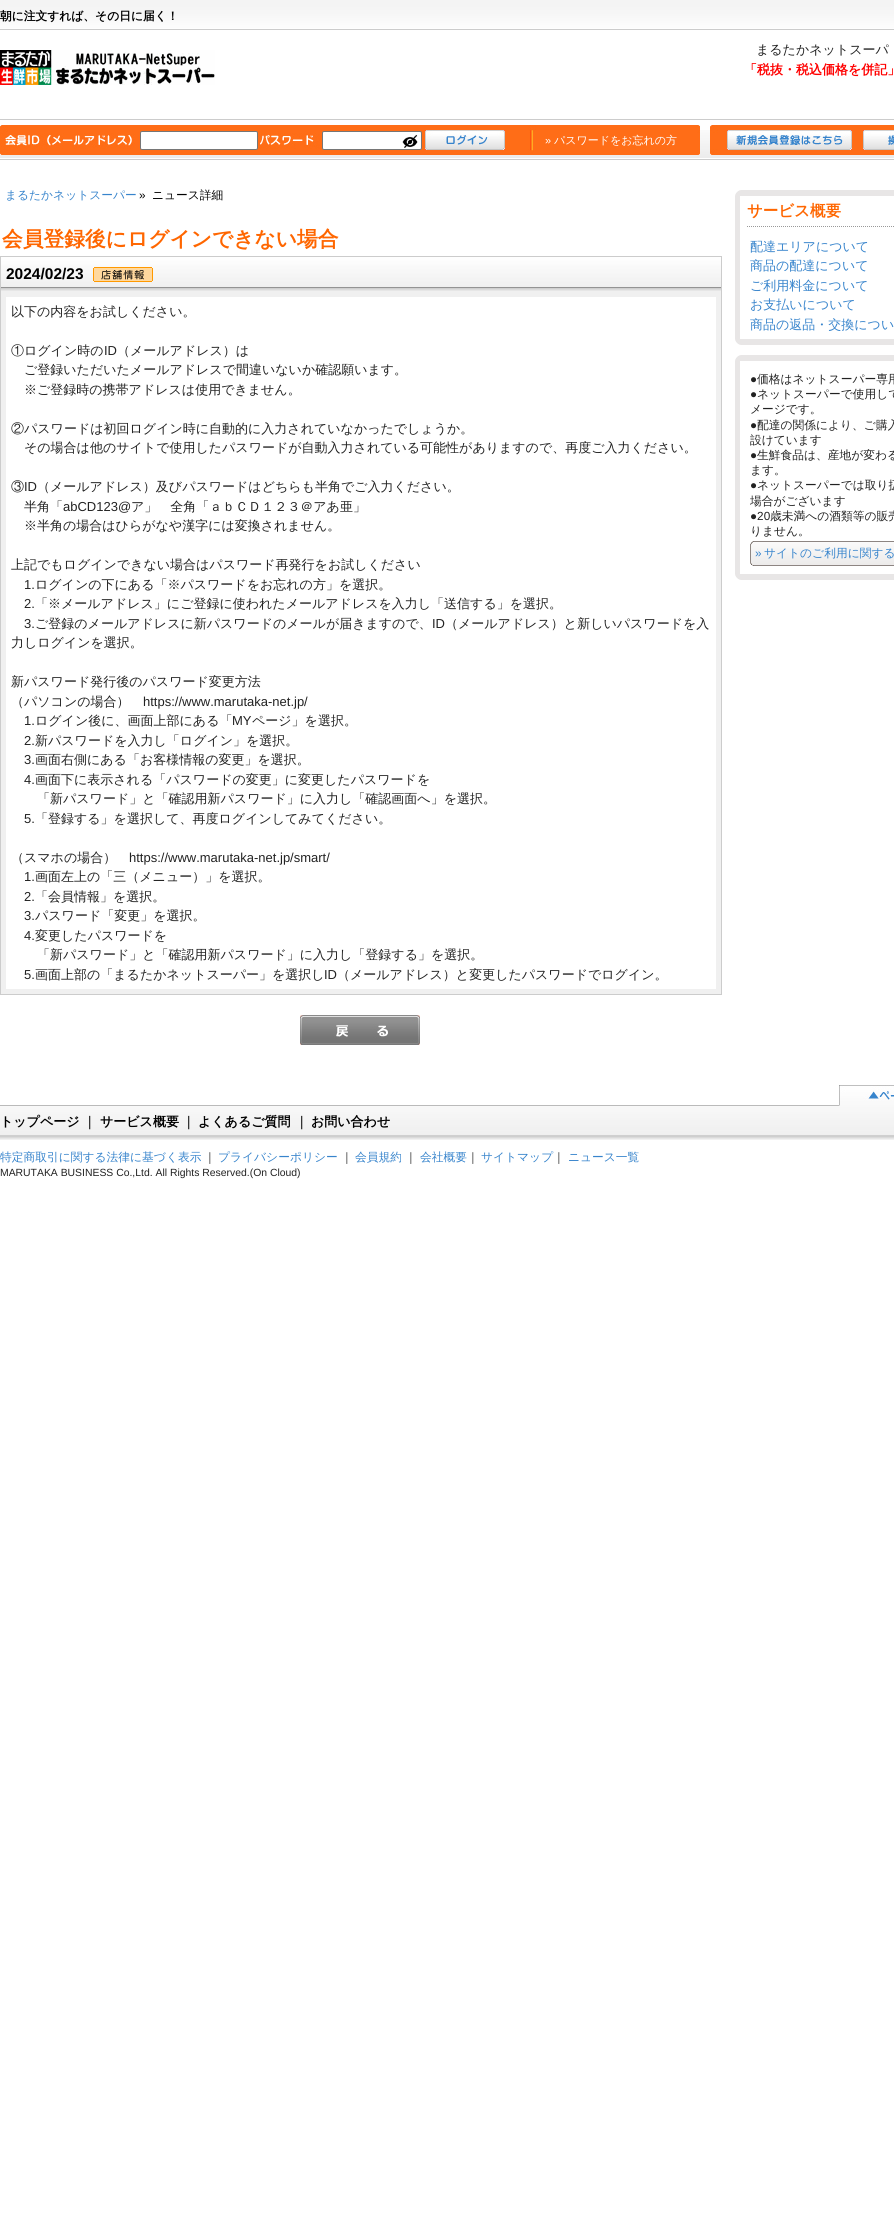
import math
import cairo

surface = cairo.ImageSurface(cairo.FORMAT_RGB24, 894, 2235)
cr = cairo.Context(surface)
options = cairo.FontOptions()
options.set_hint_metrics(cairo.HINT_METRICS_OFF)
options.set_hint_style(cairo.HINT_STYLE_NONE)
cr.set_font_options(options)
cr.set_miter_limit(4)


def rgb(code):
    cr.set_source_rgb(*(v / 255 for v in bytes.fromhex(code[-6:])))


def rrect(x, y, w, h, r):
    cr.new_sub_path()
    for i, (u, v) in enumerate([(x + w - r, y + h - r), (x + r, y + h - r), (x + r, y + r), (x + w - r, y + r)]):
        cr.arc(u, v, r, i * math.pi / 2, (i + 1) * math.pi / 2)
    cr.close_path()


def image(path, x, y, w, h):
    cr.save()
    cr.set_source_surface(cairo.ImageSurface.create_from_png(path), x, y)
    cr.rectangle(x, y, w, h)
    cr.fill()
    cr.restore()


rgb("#ffffff")
cr.paint()
image("img/1.png", 0, 0, 894, 30)
rgb("#cccccc")
cr.rectangle(0, 119, 894, 1)
cr.fill()
image("img/2.png", 0, 50, 215, 35)
image("img/3.png", 0, 130, 894, 30)
image("img/4.png", 0, 125, 700, 30)
rgb("#ffffff")
rrect(140.5, 131.5, 117, 18, 1.5)
cr.fill_preserve()
rgb("#767676")
cr.set_line_width(1)
cr.stroke()
rgb("#ffffff")
rrect(322.5, 131.5, 99, 18, 1.5)
cr.fill_preserve()
rgb("#767676")
cr.stroke()
image("img/5.png", 402, 134, 16, 14)
image("img/6.png", 425, 130, 80, 20)
image("img/7.png", 710, 125, 184, 30)
image("img/8.png", 727, 130, 125, 20)
image("img/9.png", 863, 130, 31, 20)
rgb("#f0f0f0")
cr.rectangle(1, 291, 720, 703)
cr.fill()
cr.rectangle(0.5, 256.5, 721, 738)
rgb("#cccccc")
cr.stroke()
image("img/10.png", 1, 257, 720, 34)
image("img/11.png", 93, 267, 60, 15)
rgb("#ffffff")
cr.rectangle(6, 297, 710, 692)
cr.fill()
image("img/12.png", 300, 1015, 120, 30)
image("img/13.png", 735, 190, 159, 6)
rgb("#e8e6e6")
cr.rectangle(735, 196, 5, 143)
cr.fill()
cr.new_path()
cr.move_to(747, 226.5)
cr.line_to(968, 226.5)
rgb("#999999")
cr.set_dash([1, 1])
cr.stroke()
image("img/14.png", 735, 339, 159, 6)
image("img/13.png", 735, 355, 159, 6)
rgb("#e8e6e6")
cr.rectangle(735, 361, 5, 213)
cr.fill()
image("img/15.png", 750, 541, 144, 25)
image("img/14.png", 735, 574, 159, 6)
image("img/16.png", 839, 1085, 55, 20)
image("img/17.png", 0, 1105, 894, 35)
image("img/18.png", 839, 1105, 55, 1)
cr.select_font_face("WenQuanYi Zen Hei", cairo.FONT_SLANT_NORMAL, cairo.FONT_WEIGHT_BOLD)
cr.set_font_size(11.75)
rgb("#000000")
cr.move_to(0, 20)
cr.show_text("朝に注文すれば、その日に届く！")
cr.select_font_face("WenQuanYi Zen Hei Medium")
cr.set_font_size(13)
rgb("#222222")
cr.move_to(756, 54)
cr.show_text("まるたかネットスーパ")
cr.select_font_face("WenQuanYi Zen Hei", cairo.FONT_SLANT_NORMAL, cairo.FONT_WEIGHT_BOLD)
rgb("#ff0000")
cr.move_to(744, 74)
cr.show_text("「税抜・税込価格を併記」")
cr.select_font_face("Liberation Sans")
cr.set_font_size(11)
rgb("#ffffff")
cr.move_to(545, 144)
cr.show_text("»")
cr.select_font_face("WenQuanYi Zen Hei Medium")
cr.move_to(554, 144)
cr.show_text("パスワードをお忘れの方")
cr.set_font_size(11.75)
rgb("#3784cc")
cr.move_to(5, 199)
cr.show_text("まるたかネットスーパー")
cr.select_font_face("Liberation Sans")
rgb("#000000")
cr.move_to(139, 199)
cr.show_text("»")
cr.select_font_face("WenQuanYi Zen Hei Medium")
cr.move_to(152, 199)
cr.show_text("ニュース詳細")
cr.select_font_face("WenQuanYi Zen Hei", cairo.FONT_SLANT_NORMAL, cairo.FONT_WEIGHT_BOLD)
cr.set_font_size(20.75)
rgb("#ff6600")
cr.move_to(2, 246)
cr.show_text("会員登録後にログインできない場合")
cr.select_font_face("Liberation Sans", cairo.FONT_SLANT_NORMAL, cairo.FONT_WEIGHT_BOLD)
cr.set_font_size(15.5)
rgb("#000000")
cr.move_to(6, 279)
cr.show_text("2024/02/23")
cr.select_font_face("WenQuanYi Zen Hei Medium")
cr.set_font_size(13)
rgb("#222222")
cr.move_to(11, 316)
cr.show_text("以下の内容をお試しください。")
cr.move_to(11, 355)
cr.show_text("①ログイン時の")
cr.select_font_face("Liberation Sans")
cr.move_to(104, 355)
cr.show_text("ID")
cr.select_font_face("WenQuanYi Zen Hei Medium")
for x, y, s in [
    (117, 355, "（メールアドレス）は"),
    (24, 374, "ご登録いただいたメールアドレスで間違いないか確認願います。"),
    (24, 394, "※ご登録時の携帯アドレスは使用できません。"),
    (11, 433, "②パスワードは初回ログイン時に自動的に入力されていなかったでしょうか。"),
    (24, 452, "その場合は他のサイトで使用したパスワードが自動入力されている可能性がありますので、再度ご入力ください。"),
    (11, 491, "③"),
]:
    cr.move_to(x, y)
    cr.show_text(s)
cr.select_font_face("Liberation Sans")
cr.move_to(24, 491)
cr.show_text("ID")
cr.select_font_face("WenQuanYi Zen Hei Medium")
cr.move_to(37, 491)
cr.show_text("（メールアドレス）及びパスワードはどちらも半角でご入力ください。")
cr.move_to(24, 511)
cr.show_text("半角「")
cr.select_font_face("Liberation Sans")
cr.move_to(63, 511)
cr.show_text("abCD123@")
cr.select_font_face("WenQuanYi Zen Hei Medium")
for x, y, s in [
    (131, 511, "ア」　全角「ａｂＣＤ１２３＠アあ亜」"),
    (24, 530, "※半角の場合はひらがなや漢字には変換されません。"),
    (11, 569, "上記でもログインできない場合はパスワード再発行をお試しください"),
]:
    cr.move_to(x, y)
    cr.show_text(s)
cr.select_font_face("Liberation Sans")
cr.move_to(24, 589)
cr.show_text("1.")
cr.select_font_face("WenQuanYi Zen Hei Medium")
cr.move_to(35, 589)
cr.show_text("ログインの下にある「※パスワードをお忘れの方」を選択。")
cr.select_font_face("Liberation Sans")
cr.move_to(24, 608)
cr.show_text("2.")
cr.select_font_face("WenQuanYi Zen Hei Medium")
cr.move_to(35, 608)
cr.show_text("「※メールアドレス」にご登録に使われたメールアドレスを入力し「送信する」を選択。")
cr.select_font_face("Liberation Sans")
cr.move_to(24, 628)
cr.show_text("3.")
cr.select_font_face("WenQuanYi Zen Hei Medium")
cr.move_to(35, 628)
cr.show_text("ご登録のメールアドレスに新パスワードのメールが届きますので、")
cr.select_font_face("Liberation Sans")
cr.move_to(432, 628)
cr.show_text("ID")
cr.select_font_face("WenQuanYi Zen Hei Medium")
for x, y, s in [
    (445, 628, "（メールアドレス）と新しいパスワードを入"),
    (11, 647, "力しログインを選択。"),
    (11, 686, "新パスワード発行後のパスワード変更方法"),
    (11, 706, "（パソコンの場合）"),
]:
    cr.move_to(x, y)
    cr.show_text(s)
cr.select_font_face("Liberation Sans")
cr.move_to(143, 706)
cr.show_text("https://www.marutaka-net.jp/")
cr.move_to(24, 725)
cr.show_text("1.")
cr.select_font_face("WenQuanYi Zen Hei Medium")
cr.move_to(35, 725)
cr.show_text("ログイン後に、画面上部にある「")
cr.select_font_face("Liberation Sans")
cr.move_to(232, 725)
cr.show_text("MY")
cr.select_font_face("WenQuanYi Zen Hei Medium")
cr.move_to(252, 725)
cr.show_text("ページ」を選択。")
cr.select_font_face("Liberation Sans")
cr.move_to(24, 745)
cr.show_text("2.")
cr.select_font_face("WenQuanYi Zen Hei Medium")
cr.move_to(35, 745)
cr.show_text("新パスワードを入力し「ログイン」を選択。")
cr.select_font_face("Liberation Sans")
cr.move_to(24, 764)
cr.show_text("3.")
cr.select_font_face("WenQuanYi Zen Hei Medium")
cr.move_to(35, 764)
cr.show_text("画面右側にある「お客様情報の変更」を選択。")
cr.select_font_face("Liberation Sans")
cr.move_to(24, 784)
cr.show_text("4.")
cr.select_font_face("WenQuanYi Zen Hei Medium")
cr.move_to(35, 784)
cr.show_text("画面下に表示される「パスワードの変更」に変更したパスワードを")
cr.move_to(37, 803)
cr.show_text("「新パスワード」と「確認用新パスワード」に入力し「確認画面へ」を選択。")
cr.select_font_face("Liberation Sans")
cr.move_to(24, 823)
cr.show_text("5.")
cr.select_font_face("WenQuanYi Zen Hei Medium")
cr.move_to(35, 823)
cr.show_text("「登録する」を選択して、再度ログインしてみてください。")
cr.move_to(11, 862)
cr.show_text("（スマホの場合）")
cr.select_font_face("Liberation Sans")
cr.move_to(129, 862)
cr.show_text("https://www.marutaka-net.jp/smart/")
cr.move_to(24, 881)
cr.show_text("1.")
cr.select_font_face("WenQuanYi Zen Hei Medium")
cr.move_to(35, 881)
cr.show_text("画面左上の「三（メニュー）」を選択。")
cr.select_font_face("Liberation Sans")
cr.move_to(24, 901)
cr.show_text("2.")
cr.select_font_face("WenQuanYi Zen Hei Medium")
cr.move_to(35, 901)
cr.show_text("「会員情報」を選択。")
cr.select_font_face("Liberation Sans")
cr.move_to(24, 920)
cr.show_text("3.")
cr.select_font_face("WenQuanYi Zen Hei Medium")
cr.move_to(35, 920)
cr.show_text("パスワード「変更」を選択。")
cr.select_font_face("Liberation Sans")
cr.move_to(24, 940)
cr.show_text("4.")
cr.select_font_face("WenQuanYi Zen Hei Medium")
cr.move_to(35, 940)
cr.show_text("変更したパスワードを")
cr.move_to(37, 959)
cr.show_text("「新パスワード」と「確認用新パスワード」に入力し「登録する」を選択。")
cr.select_font_face("Liberation Sans")
cr.move_to(24, 979)
cr.show_text("5.")
cr.select_font_face("WenQuanYi Zen Hei Medium")
cr.move_to(35, 979)
cr.show_text("画面上部の「まるたかネットスーパー」を選択し")
cr.select_font_face("Liberation Sans")
cr.move_to(324, 979)
cr.show_text("ID")
cr.select_font_face("WenQuanYi Zen Hei Medium")
cr.move_to(337, 979)
cr.show_text("（メールアドレス）と変更したパスワードでログイン。")
cr.select_font_face("WenQuanYi Zen Hei", cairo.FONT_SLANT_NORMAL, cairo.FONT_WEIGHT_BOLD)
cr.set_font_size(15.5)
rgb("#ff6600")
cr.move_to(747, 216)
cr.show_text("サービス概要")
cr.select_font_face("WenQuanYi Zen Hei Medium")
cr.set_font_size(13)
rgb("#3784cc")
for x, y, s in [
    (750, 251, "配達エリアについて"),
    (750, 270, "商品の配達について"),
    (750, 290, "ご利用料金について"),
    (750, 309, "お支払いについて"),
    (750, 329, "商品の返品・交換につい"),
]:
    cr.move_to(x, y)
    cr.show_text(s)
cr.select_font_face("Liberation Sans")
cr.set_font_size(11.75)
rgb("#222222")
cr.move_to(750, 383)
cr.show_text("●")
cr.select_font_face("WenQuanYi Zen Hei Medium")
cr.move_to(757, 383)
cr.show_text("価格はネットスーパー専用")
cr.select_font_face("Liberation Sans")
cr.move_to(750, 398)
cr.show_text("●")
cr.select_font_face("WenQuanYi Zen Hei Medium")
cr.move_to(757, 398)
cr.show_text("ネットスーパーで使用して")
cr.move_to(750, 413)
cr.show_text("メージです。")
cr.select_font_face("Liberation Sans")
cr.move_to(750, 429)
cr.show_text("●")
cr.select_font_face("WenQuanYi Zen Hei Medium")
cr.move_to(757, 429)
cr.show_text("配達の関係により、ご購入")
cr.move_to(750, 444)
cr.show_text("設けています")
cr.select_font_face("Liberation Sans")
cr.move_to(750, 459)
cr.show_text("●")
cr.select_font_face("WenQuanYi Zen Hei Medium")
cr.move_to(757, 459)
cr.show_text("生鮮食品は、産地が変わる")
cr.move_to(750, 474)
cr.show_text("ます。")
cr.select_font_face("Liberation Sans")
cr.move_to(750, 489)
cr.show_text("●")
cr.select_font_face("WenQuanYi Zen Hei Medium")
cr.move_to(757, 489)
cr.show_text("ネットスーパーでは取り扱")
cr.move_to(750, 505)
cr.show_text("場合がございます")
cr.select_font_face("Liberation Sans")
cr.move_to(750, 520)
cr.show_text("●20")
cr.select_font_face("WenQuanYi Zen Hei Medium")
cr.move_to(770, 520)
cr.show_text("歳未満への酒類等の販売")
cr.move_to(750, 535)
cr.show_text("りません。")
cr.select_font_face("Liberation Sans")
rgb("#3784cc")
cr.move_to(755, 557)
cr.show_text("»")
cr.select_font_face("WenQuanYi Zen Hei Medium")
cr.move_to(764, 557)
cr.show_text("サイトのご利用に関する")
cr.select_font_face("WenQuanYi Zen Hei", cairo.FONT_SLANT_NORMAL, cairo.FONT_WEIGHT_BOLD)
cr.set_font_size(13)
rgb("#000000")
cr.move_to(0, 1126)
cr.show_text("トップページ")
rgb("#222222")
cr.move_to(83, 1126)
cr.show_text("｜")
rgb("#000000")
cr.move_to(100, 1126)
cr.show_text("サービス概要")
rgb("#222222")
cr.move_to(182, 1126)
cr.show_text("｜")
rgb("#000000")
cr.move_to(198, 1126)
cr.show_text("よくあるご質問")
rgb("#222222")
cr.move_to(295, 1126)
cr.show_text("｜")
rgb("#000000")
cr.move_to(311, 1126)
cr.show_text("お問い合わせ")
cr.select_font_face("WenQuanYi Zen Hei Medium")
cr.set_font_size(11.75)
rgb("#3784cc")
cr.move_to(0, 1161)
cr.show_text("特定商取引に関する法律に基づく表示")
rgb("#222222")
cr.move_to(204, 1161)
cr.show_text("｜")
rgb("#3784cc")
cr.move_to(218, 1161)
cr.show_text("プライバシーポリシー")
rgb("#222222")
cr.move_to(341, 1161)
cr.show_text("｜")
rgb("#3784cc")
cr.move_to(355, 1161)
cr.show_text("会員規約")
rgb("#222222")
cr.move_to(405, 1161)
cr.show_text("｜")
rgb("#3784cc")
cr.move_to(420, 1161)
cr.show_text("会社概要")
rgb("#222222")
cr.move_to(467, 1161)
cr.show_text("｜")
rgb("#3784cc")
cr.move_to(481, 1161)
cr.show_text("サイトマップ")
rgb("#222222")
cr.move_to(553, 1161)
cr.show_text("｜")
rgb("#3784cc")
cr.move_to(568, 1161)
cr.show_text("ニュース一覧")
cr.select_font_face("Liberation Sans")
cr.set_font_size(10.4)
rgb("#222222")
cr.move_to(0, 1176)
cr.show_text("MARUTAKA BUSINESS Co.,Ltd. All Rights Reserved.(On Cloud)")
surface.write_to_png("page.png")
